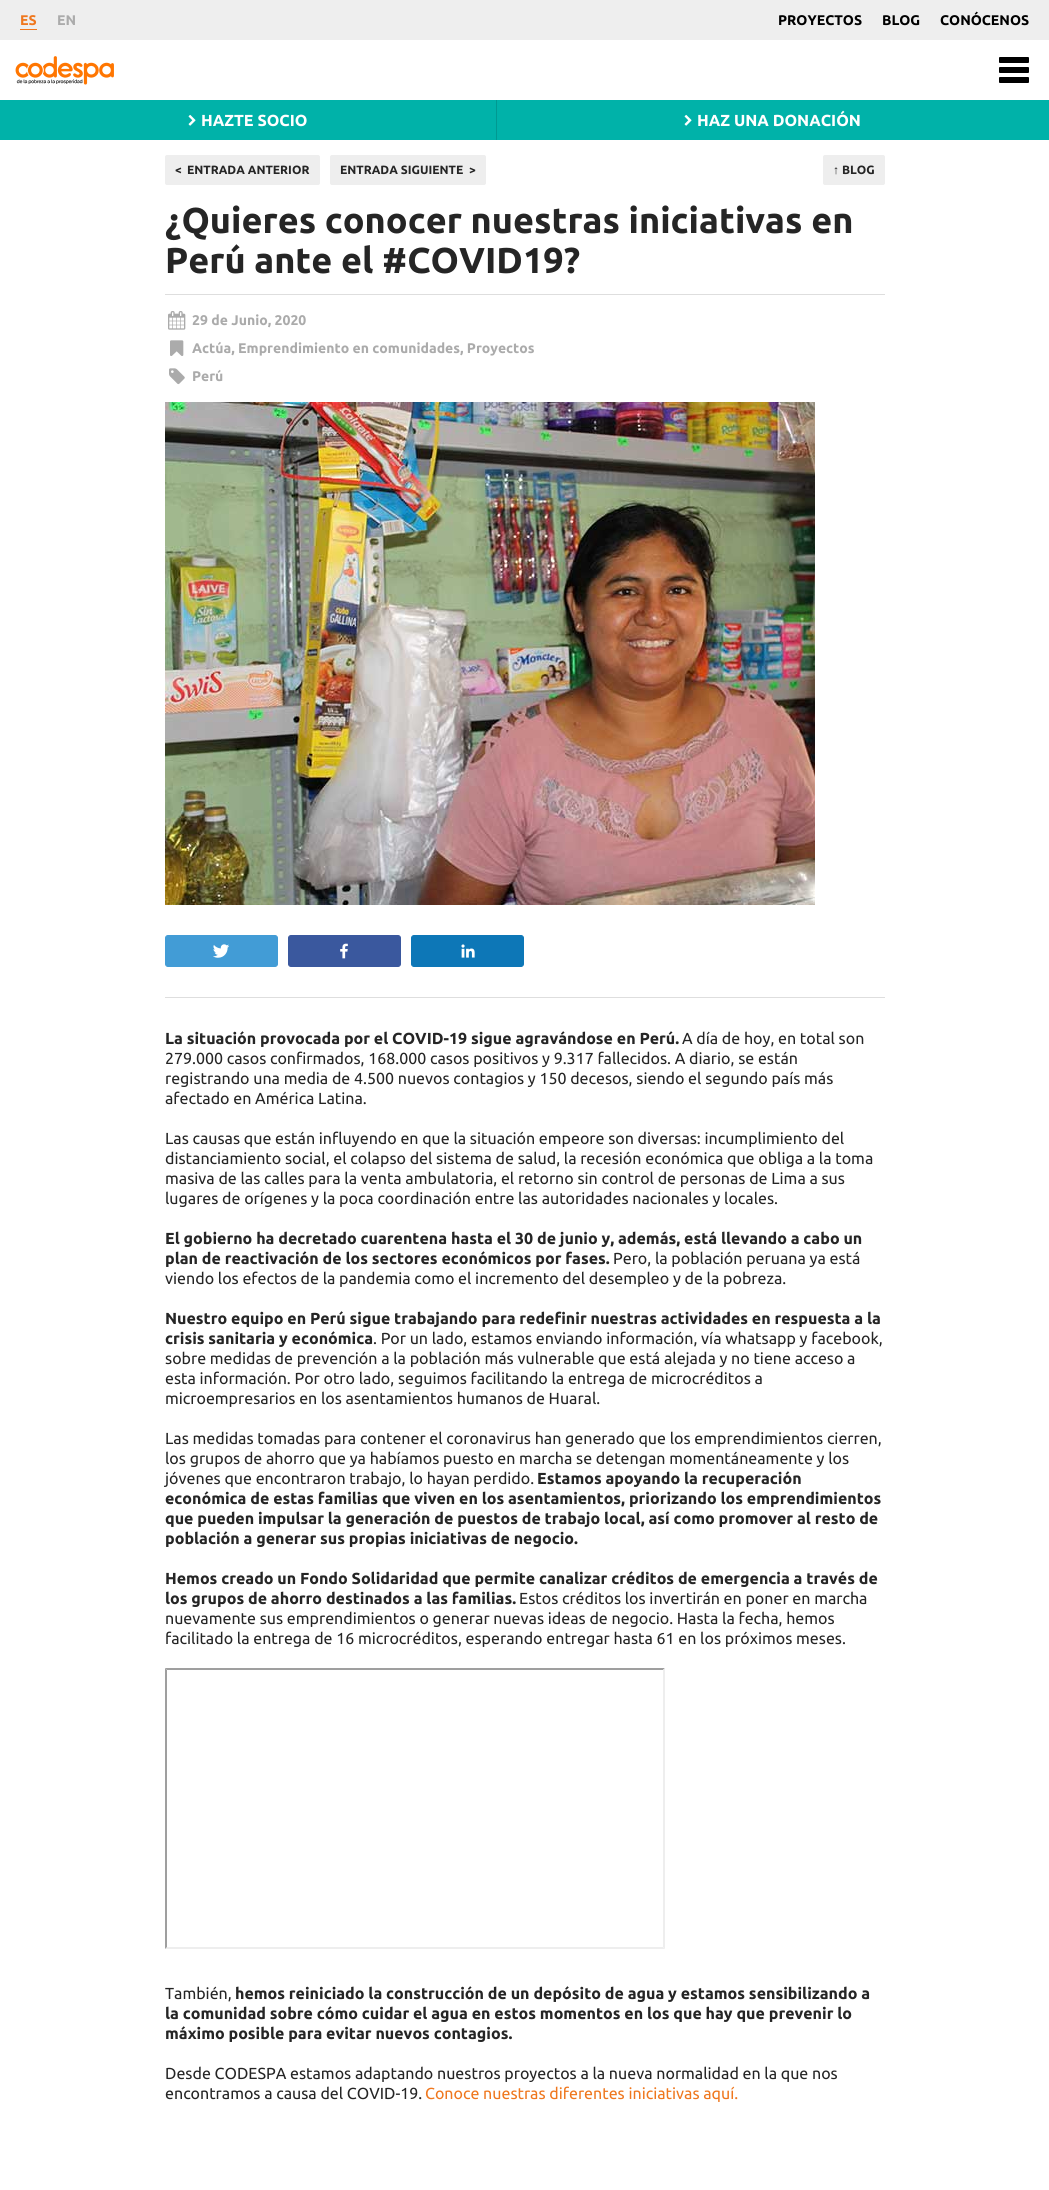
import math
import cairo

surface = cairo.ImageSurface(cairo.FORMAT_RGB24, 1049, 2190)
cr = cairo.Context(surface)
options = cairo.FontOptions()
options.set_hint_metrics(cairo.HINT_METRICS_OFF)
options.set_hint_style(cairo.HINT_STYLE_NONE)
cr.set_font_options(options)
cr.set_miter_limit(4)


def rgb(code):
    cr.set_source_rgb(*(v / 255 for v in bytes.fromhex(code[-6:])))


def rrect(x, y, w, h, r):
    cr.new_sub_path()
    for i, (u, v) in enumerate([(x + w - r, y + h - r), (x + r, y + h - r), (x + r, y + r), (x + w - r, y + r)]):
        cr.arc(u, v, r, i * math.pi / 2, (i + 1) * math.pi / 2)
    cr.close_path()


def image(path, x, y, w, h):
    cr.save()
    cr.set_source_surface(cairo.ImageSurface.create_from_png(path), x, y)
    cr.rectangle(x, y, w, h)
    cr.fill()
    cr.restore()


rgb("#ffffff")
cr.paint()
rgb("#eeeeee")
cr.rectangle(0, 0, 1049, 40)
cr.fill()
rgb("#ef771e")
cr.rectangle(20, 29, 17, 1)
cr.fill()
image("img/1.png", 15, 56, 99, 29)
rgb("#000000")
rrect(999, 57, 30, 6, 1)
cr.fill()
rrect(999, 67, 30, 6, 1)
cr.fill()
rrect(999, 77, 30, 6, 1)
cr.fill()
rgb("#00b2a9")
cr.rectangle(0, 100, 496, 40)
cr.fill()
image("img/2.png", 188, 114, 8, 12)
cr.rectangle(497, 100, 552, 40)
cr.fill()
rgb("#009991")
cr.rectangle(496, 100, 1, 40)
cr.fill()
image("img/2.png", 684, 114, 8, 12)
rgb("#eeeeee")
rrect(165.5, 155.5, 154, 29, 1.5)
cr.fill_preserve()
cr.set_line_width(1)
cr.stroke()
rrect(330.5, 155.5, 155, 29, 1.5)
cr.fill_preserve()
cr.stroke()
rrect(823.5, 155.5, 61, 29, 1.5)
cr.fill_preserve()
cr.stroke()
rgb("#dedede")
cr.rectangle(165, 294, 720, 1)
cr.fill()
image("img/3.png", 168, 311, 18, 19)
image("img/4.png", 170, 340, 14, 16)
image("img/5.png", 169, 368, 16, 17)
image("img/6.png", 165, 402, 650, 503)
rgb("#429cd6")
rrect(165.5, 935.5, 112, 31, 2.5)
cr.fill_preserve()
cr.stroke()
image("img/7.png", 213, 944, 16, 14)
rgb("#3a589e")
rrect(288.5, 935.5, 112, 31, 2.5)
cr.fill_preserve()
cr.stroke()
image("img/8.png", 340, 943, 8, 16)
rgb("#0d77b7")
rrect(411.5, 935.5, 112, 31, 2.5)
cr.fill_preserve()
cr.stroke()
image("img/9.png", 461, 944, 14, 14)
rgb("#dedede")
cr.rectangle(165, 997, 720, 1)
cr.fill()
rgb("#9f9f9f")
cr.new_path()
cr.move_to(165, 1668)
cr.line_to(665, 1668)
cr.line_to(663, 1670)
cr.line_to(167, 1670)
cr.close_path()
cr.fill()
rgb("#eeeeee")
cr.new_path()
cr.move_to(665, 1668)
cr.line_to(665, 1949)
cr.line_to(663, 1947)
cr.line_to(663, 1670)
cr.close_path()
cr.fill()
cr.new_path()
cr.move_to(665, 1949)
cr.line_to(165, 1949)
cr.line_to(167, 1947)
cr.line_to(663, 1947)
cr.close_path()
cr.fill()
rgb("#9f9f9f")
cr.new_path()
cr.move_to(165, 1949)
cr.line_to(165, 1668)
cr.line_to(167, 1670)
cr.line_to(167, 1947)
cr.close_path()
cr.fill()
cr.select_font_face("Ubuntu", cairo.FONT_SLANT_NORMAL, cairo.FONT_WEIGHT_BOLD)
cr.set_font_size(14)
rgb("#ef771e")
cr.move_to(20, 25)
cr.show_text("ES")
rgb("#ababab")
cr.move_to(57, 25)
cr.show_text("EN")
rgb("#000000")
for x, y, s in [
    (778, 25, "PROYECTOS"),
    (882, 25, "BLOG"),
    (940, 25, "CONÓCENOS"),
]:
    cr.move_to(x, y)
    cr.show_text(s)
cr.set_font_size(16)
rgb("#ffffff")
cr.move_to(201, 126)
cr.show_text("HAZTE SOCIO")
cr.move_to(697, 126)
cr.show_text("HAZ UNA DONACIÓN")
cr.set_font_size(12)
rgb("#252525")
for x, y, s in [
    (175, 174, "<"),
    (187, 174, "ENTRADA ANTERIOR"),
    (340, 174, "ENTRADA SIGUIENTE"),
    (469, 174, ">"),
]:
    cr.move_to(x, y)
    cr.show_text(s)
cr.select_font_face("Liberation Sans", cairo.FONT_SLANT_NORMAL, cairo.FONT_WEIGHT_BOLD)
cr.move_to(833, 174)
cr.show_text("↑")
cr.select_font_face("Ubuntu", cairo.FONT_SLANT_NORMAL, cairo.FONT_WEIGHT_BOLD)
cr.move_to(842, 174)
cr.show_text("BLOG")
cr.set_font_size(36)
cr.move_to(165, 233)
cr.show_text("¿Quieres conocer nuestras iniciativas en")
cr.move_to(165, 273)
cr.show_text("Perú ante el #COVID19?")
cr.set_font_size(14)
rgb("#ababab")
for x, y, s in [
    (192, 325, "29 de Junio, 2020"),
    (192, 353, "Actúa, Emprendimiento en comunidades, Proyectos"),
    (192, 381, "Perú"),
]:
    cr.move_to(x, y)
    cr.show_text(s)
cr.set_font_size(16)
rgb("#252525")
cr.move_to(165, 1044)
cr.show_text("La situación provocada por el COVID-19 sigue agravándose en Perú.")
cr.select_font_face("Ubuntu")
for x, y, s in [
    (682, 1044, "A día de hoy, en total son"),
    (165, 1064, "279.000 casos confirmados, 168.000 casos positivos y 9.317 fallecidos. A diario, se están"),
    (165, 1084, "registrando una media de 4.500 nuevos contagios y 150 decesos, siendo el segundo país más"),
    (165, 1104, "afectado en América Latina."),
    (165, 1144, "Las causas que están influyendo en que la situación empeore son diversas: incumplimiento del"),
    (165, 1164, "distanciamiento social, el colapso del sistema de salud, la recesión económica que obliga a la toma"),
    (165, 1184, "masiva de las calles para la venta ambulatoria, el retorno sin control de personas de Lima a sus"),
    (165, 1204, "lugares de orígenes y la poca coordinación entre las autoridades nacionales y locales."),
]:
    cr.move_to(x, y)
    cr.show_text(s)
cr.select_font_face("Ubuntu", cairo.FONT_SLANT_NORMAL, cairo.FONT_WEIGHT_BOLD)
cr.move_to(165, 1244)
cr.show_text("El gobierno ha decretado cuarentena hasta el 30 de junio y, además, está llevando a cabo un")
cr.move_to(165, 1264)
cr.show_text("plan de reactivación de los sectores económicos por fases.")
cr.select_font_face("Ubuntu")
cr.move_to(613, 1264)
cr.show_text("Pero, la población peruana ya está")
cr.move_to(165, 1284)
cr.show_text("viendo los efectos de la pandemia como el incremento del desempleo y de la pobreza.")
cr.select_font_face("Ubuntu", cairo.FONT_SLANT_NORMAL, cairo.FONT_WEIGHT_BOLD)
cr.move_to(165, 1324)
cr.show_text("Nuestro equipo en Perú sigue trabajando para redefinir nuestras actividades en respuesta a la")
cr.move_to(165, 1344)
cr.show_text("crisis sanitaria y económica")
cr.select_font_face("Ubuntu")
for x, y, s in [
    (373, 1344, ". Por un lado, estamos enviando información, vía whatsapp y facebook,"),
    (165, 1364, "sobre medidas de prevención a la población más vulnerable que está alejada y no tiene acceso a"),
    (165, 1384, "esta información. Por otro lado, seguimos facilitando la entrega de microcréditos a"),
    (165, 1404, "microempresarios en los asentamientos humanos de Huaral."),
    (165, 1444, "Las medidas tomadas para contener el coronavirus han generado que los emprendimientos cierren,"),
    (165, 1464, "los grupos de ahorro que ya habíamos puesto en marcha se detengan momentáneamente y los"),
    (165, 1484, "jóvenes que encontraron trabajo, lo hayan perdido."),
]:
    cr.move_to(x, y)
    cr.show_text(s)
cr.select_font_face("Ubuntu", cairo.FONT_SLANT_NORMAL, cairo.FONT_WEIGHT_BOLD)
for x, y, s in [
    (537, 1484, "Estamos apoyando la recuperación"),
    (165, 1504, "económica de estas familias que viven en los asentamientos, priorizando los emprendimientos"),
    (165, 1524, "que pueden impulsar la generación de puestos de trabajo local, así como promover al resto de"),
    (165, 1544, "población a generar sus propias iniciativas de negocio."),
    (165, 1584, "Hemos creado un Fondo Solidaridad que permite canalizar créditos de emergencia a través de"),
    (165, 1604, "los grupos de ahorro destinados a las familias."),
]:
    cr.move_to(x, y)
    cr.show_text(s)
cr.select_font_face("Ubuntu")
for x, y, s in [
    (519, 1604, "Estos créditos los invertirán en poner en marcha"),
    (165, 1624, "nuevamente sus emprendimientos o generar nuevas ideas de negocio. Hasta la fecha, hemos"),
    (165, 1644, "facilitado la entrega de 16 microcréditos, esperando entregar hasta 61 en los próximos meses."),
    (165, 1999, "También,"),
]:
    cr.move_to(x, y)
    cr.show_text(s)
cr.select_font_face("Ubuntu", cairo.FONT_SLANT_NORMAL, cairo.FONT_WEIGHT_BOLD)
for x, y, s in [
    (235, 1999, "hemos reiniciado la construcción de un depósito de agua y estamos sensibilizando a"),
    (165, 2019, "la comunidad sobre cómo cuidar el agua en estos momentos en los que hay que prevenir lo"),
    (165, 2039, "máximo posible para evitar nuevos contagios."),
]:
    cr.move_to(x, y)
    cr.show_text(s)
cr.select_font_face("Ubuntu")
cr.move_to(165, 2079)
cr.show_text("Desde CODESPA estamos adaptando nuestros proyectos a la nueva normalidad en la que nos")
cr.move_to(165, 2099)
cr.show_text("encontramos a causa del COVID-19.")
rgb("#ef771e")
cr.move_to(425, 2099)
cr.show_text("Conoce nuestras diferentes iniciativas aquí.")
surface.write_to_png("page.png")
